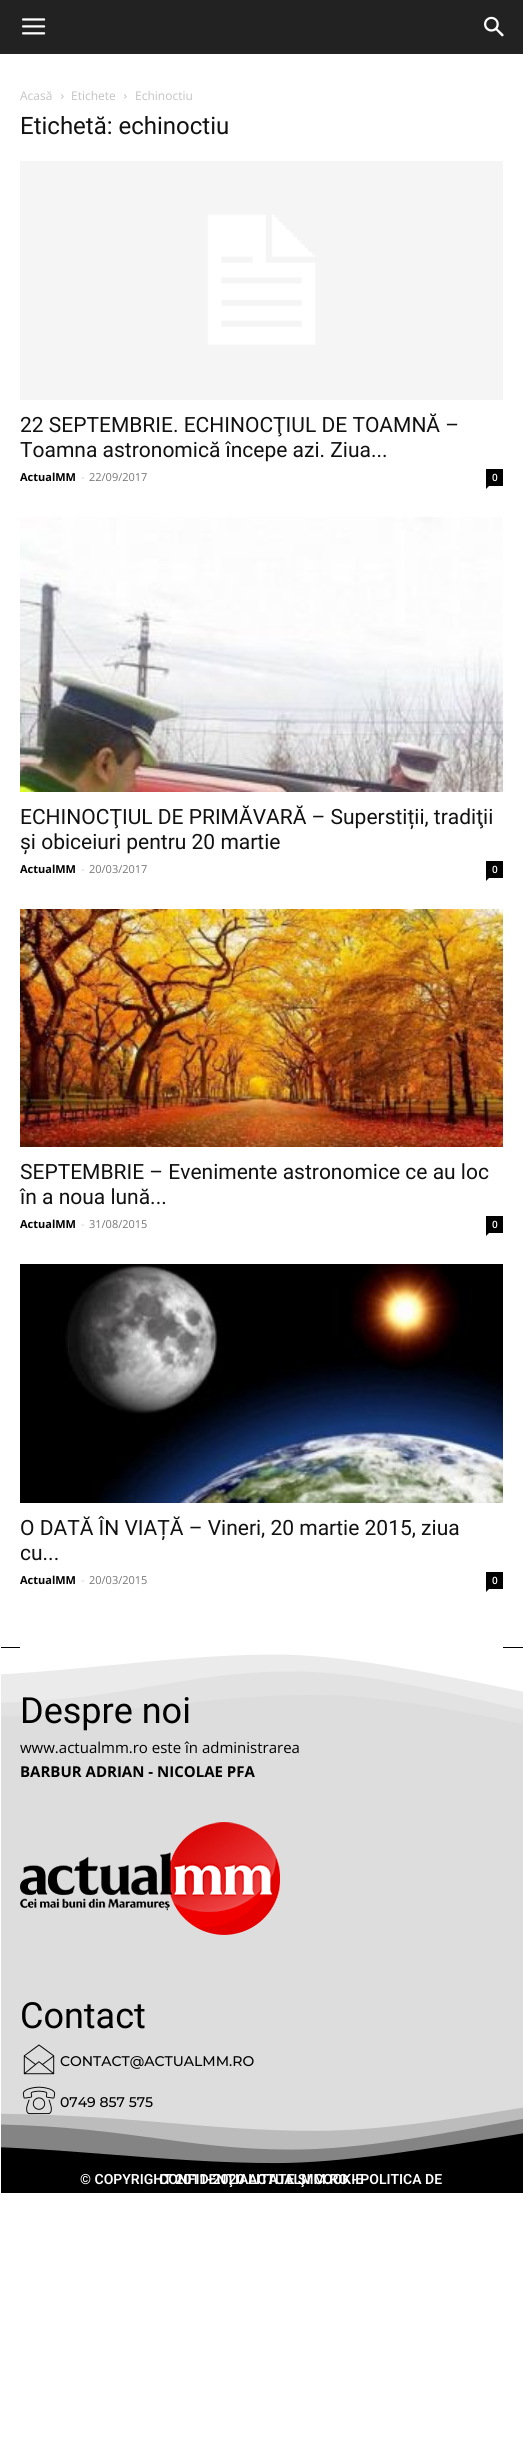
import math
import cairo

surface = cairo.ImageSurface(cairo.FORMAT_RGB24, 523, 2444)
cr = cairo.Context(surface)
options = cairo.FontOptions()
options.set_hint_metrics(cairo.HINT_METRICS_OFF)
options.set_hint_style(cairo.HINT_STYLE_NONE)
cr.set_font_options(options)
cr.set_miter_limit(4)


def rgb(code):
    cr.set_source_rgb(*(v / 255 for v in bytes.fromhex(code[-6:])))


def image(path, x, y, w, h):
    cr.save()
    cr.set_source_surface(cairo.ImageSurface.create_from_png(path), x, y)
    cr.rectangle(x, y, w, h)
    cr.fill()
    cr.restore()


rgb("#ffffff")
cr.paint()
rgb("#222222")
cr.rectangle(0, 0, 523, 54)
cr.fill()
image("img/1.png", 22, 18, 24, 17)
image("img/2.png", 484, 16, 20, 21)
image("img/3.png", 61, 94, 3, 5)
image("img/3.png", 124, 94, 3, 5)
image("img/4.png", 20, 161, 483, 239)
rgb("#000000")
cr.rectangle(486, 469, 17, 17)
cr.fill()
cr.new_path()
cr.move_to(486, 486)
cr.line_to(489, 486)
cr.line_to(486, 489)
cr.close_path()
cr.fill()
image("img/5.png", 20, 517, 483, 275)
cr.rectangle(486, 861, 17, 17)
cr.fill()
cr.new_path()
cr.move_to(486, 878)
cr.line_to(489, 878)
cr.line_to(486, 881)
cr.close_path()
cr.fill()
image("img/6.png", 20, 909, 483, 238)
cr.rectangle(486, 1216, 17, 17)
cr.fill()
cr.new_path()
cr.move_to(486, 1233)
cr.line_to(489, 1233)
cr.line_to(486, 1236)
cr.close_path()
cr.fill()
image("img/7.png", 20, 1264, 483, 239)
cr.rectangle(486, 1572, 17, 17)
cr.fill()
cr.new_path()
cr.move_to(486, 1589)
cr.line_to(489, 1589)
cr.line_to(486, 1592)
cr.close_path()
cr.fill()
for x, y, w, h, color in [
    (1, 1647, 522, 546, "#000000"),
    (20, 1647, 483, 1, "#ffffff"),
    (1, 1654, 522, 510, "#dddddd"),
]:
    rgb(color)
    cr.rectangle(x, y, w, h)
    cr.fill()
image("img/8.png", 1, 1648, 522, 75)
image("img/9.png", 1, 2107, 522, 62)
image("img/10.png", 20, 1822, 260, 113)
image("img/11.png", 23, 2044, 32, 31)
image("img/12.png", 22, 2086, 34, 29)
cr.select_font_face("Open Sans")
cr.set_font_size(12)
rgb("#c3c3c3")
for x, y, s in [
    (20, 100, "Acasă"),
    (71, 100, "Etichete"),
    (135, 100, "Echinoctiu"),
]:
    cr.move_to(x, y)
    cr.show_text(s)
cr.select_font_face("Roboto")
cr.set_font_size(24)
rgb("#111111")
cr.move_to(20, 134)
cr.show_text("Etichetă: echinoctiu")
cr.set_font_size(21)
cr.move_to(20, 432)
cr.show_text("22 SEPTEMBRIE. ECHINOCŢIUL DE TOAMNĂ –")
cr.move_to(20, 457)
cr.show_text("Toamna astronomică începe azi. Ziua...")
cr.select_font_face("Open Sans", cairo.FONT_SLANT_NORMAL, cairo.FONT_WEIGHT_BOLD)
cr.set_font_size(11)
rgb("#000000")
cr.move_to(20, 481)
cr.show_text("ActualMM")
cr.select_font_face("Open Sans")
rgb("#cccccc")
cr.move_to(81, 481)
cr.show_text("-")
rgb("#767676")
cr.move_to(89, 481)
cr.show_text("22/09/2017")
cr.select_font_face("Open Sans SemiBold")
cr.set_font_size(10)
rgb("#ffffff")
cr.move_to(492, 481)
cr.show_text("0")
cr.select_font_face("Roboto")
cr.set_font_size(21)
rgb("#111111")
cr.move_to(20, 824)
cr.show_text("ECHINOCŢIUL DE PRIMĂVARĂ – Superstiții, tradiţii")
cr.move_to(20, 849)
cr.show_text("și obiceiuri pentru 20 martie")
cr.select_font_face("Open Sans", cairo.FONT_SLANT_NORMAL, cairo.FONT_WEIGHT_BOLD)
cr.set_font_size(11)
rgb("#000000")
cr.move_to(20, 873)
cr.show_text("ActualMM")
cr.select_font_face("Open Sans")
rgb("#cccccc")
cr.move_to(81, 873)
cr.show_text("-")
rgb("#767676")
cr.move_to(89, 873)
cr.show_text("20/03/2017")
cr.select_font_face("Open Sans SemiBold")
cr.set_font_size(10)
rgb("#ffffff")
cr.move_to(492, 873)
cr.show_text("0")
cr.select_font_face("Roboto")
cr.set_font_size(21)
rgb("#111111")
cr.move_to(20, 1179)
cr.show_text("SEPTEMBRIE – Evenimente astronomice ce au loc")
cr.move_to(20, 1204)
cr.show_text("în a noua lună...")
cr.select_font_face("Open Sans", cairo.FONT_SLANT_NORMAL, cairo.FONT_WEIGHT_BOLD)
cr.set_font_size(11)
rgb("#000000")
cr.move_to(20, 1228)
cr.show_text("ActualMM")
cr.select_font_face("Open Sans")
rgb("#cccccc")
cr.move_to(81, 1228)
cr.show_text("-")
rgb("#767676")
cr.move_to(89, 1228)
cr.show_text("31/08/2015")
cr.select_font_face("Open Sans SemiBold")
cr.set_font_size(10)
rgb("#ffffff")
cr.move_to(492, 1228)
cr.show_text("0")
cr.select_font_face("Roboto")
cr.set_font_size(21)
rgb("#111111")
cr.move_to(20, 1535)
cr.show_text("O DATĂ ÎN VIAȚĂ – Vineri, 20 martie 2015, ziua")
cr.move_to(20, 1560)
cr.show_text("cu...")
cr.select_font_face("Open Sans", cairo.FONT_SLANT_NORMAL, cairo.FONT_WEIGHT_BOLD)
cr.set_font_size(11)
rgb("#000000")
cr.move_to(20, 1584)
cr.show_text("ActualMM")
cr.select_font_face("Open Sans")
rgb("#cccccc")
cr.move_to(81, 1584)
cr.show_text("-")
rgb("#767676")
cr.move_to(89, 1584)
cr.show_text("20/03/2015")
cr.select_font_face("Open Sans SemiBold")
cr.set_font_size(10)
rgb("#ffffff")
cr.move_to(492, 1584)
cr.show_text("0")
cr.select_font_face("Roboto")
cr.set_font_size(36)
rgb("#000000")
cr.move_to(20, 1723)
cr.show_text("Despre noi")
cr.select_font_face("Open Sans")
cr.set_font_size(15)
cr.move_to(20, 1753)
cr.show_text("www.actualmm.ro este în administrarea")
cr.select_font_face("Open Sans", cairo.FONT_SLANT_NORMAL, cairo.FONT_WEIGHT_BOLD)
cr.move_to(20, 1777)
cr.show_text("BARBUR ADRIAN - NICOLAE PFA")
cr.select_font_face("Roboto")
cr.set_font_size(36)
cr.move_to(20, 2028)
cr.show_text("Contact")
cr.select_font_face("Montserrat Medium")
cr.set_font_size(14)
cr.move_to(60, 2066)
cr.show_text("CONTACT@ACTUALMM.RO")
cr.move_to(60, 2107)
cr.show_text("0749 857 575")
cr.select_font_face("Roboto SemiBold")
rgb("#ffffff")
cr.move_to(80, 2184)
cr.show_text("© COPYRIGHT 2011-2020 ACTUALMM.RO - POLITICA DE")
cr.move_to(159, 2184)
cr.show_text("CONFIDENŢIALITATE ŞI COOKIE")
surface.write_to_png("page.png")
